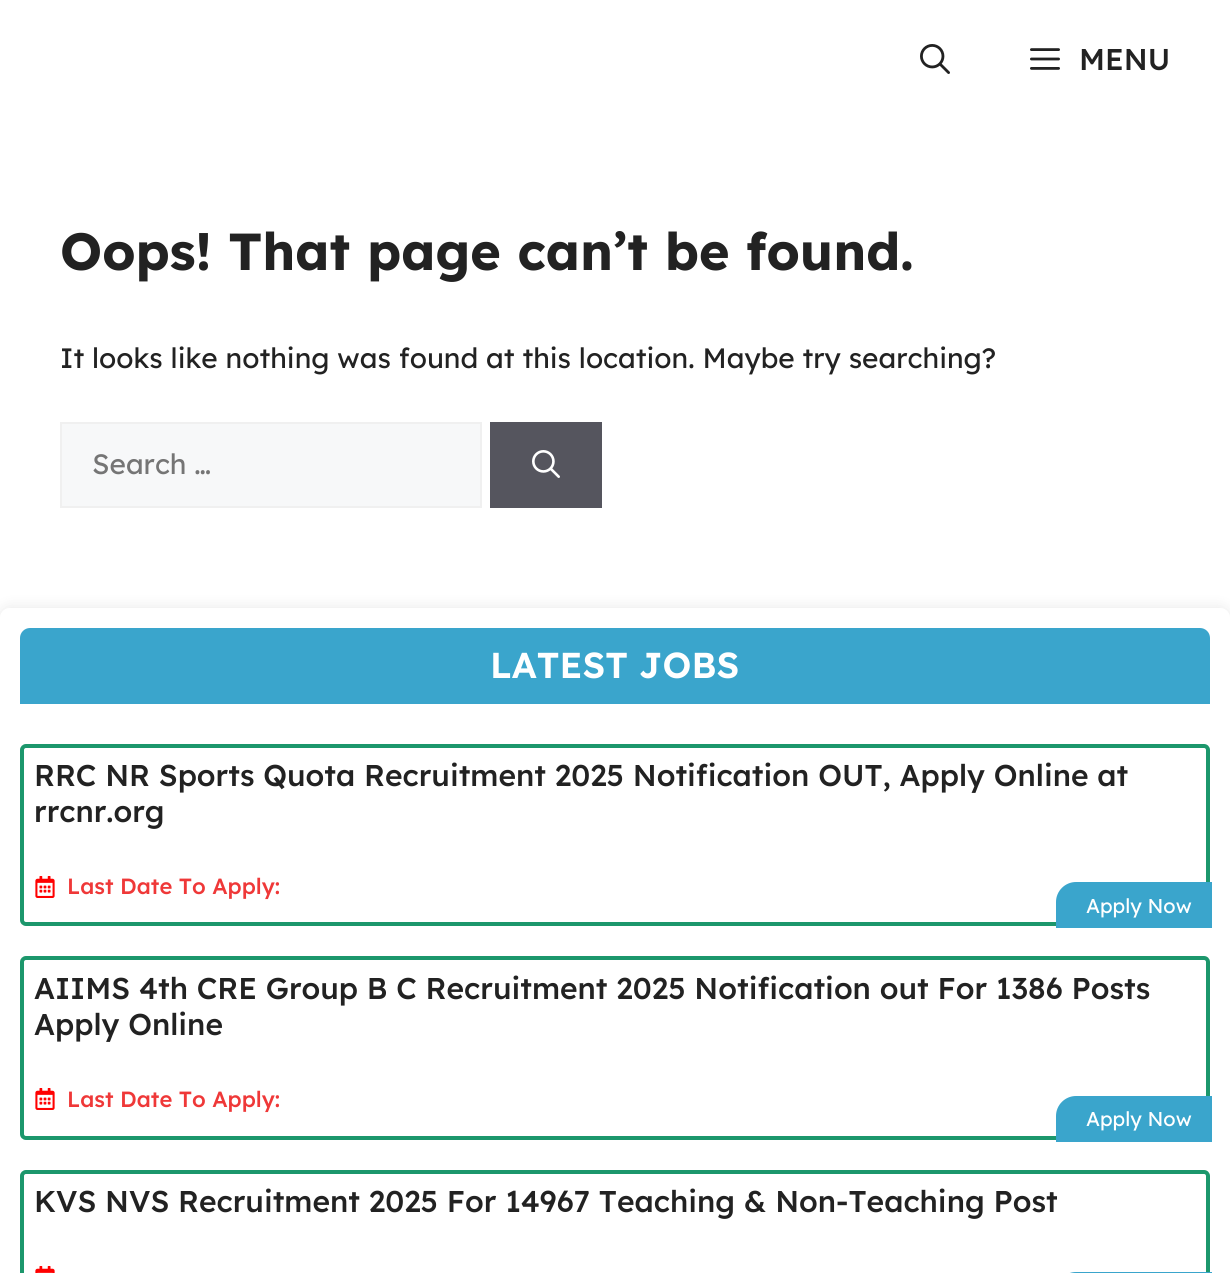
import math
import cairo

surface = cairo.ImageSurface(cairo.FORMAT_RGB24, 1230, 1273)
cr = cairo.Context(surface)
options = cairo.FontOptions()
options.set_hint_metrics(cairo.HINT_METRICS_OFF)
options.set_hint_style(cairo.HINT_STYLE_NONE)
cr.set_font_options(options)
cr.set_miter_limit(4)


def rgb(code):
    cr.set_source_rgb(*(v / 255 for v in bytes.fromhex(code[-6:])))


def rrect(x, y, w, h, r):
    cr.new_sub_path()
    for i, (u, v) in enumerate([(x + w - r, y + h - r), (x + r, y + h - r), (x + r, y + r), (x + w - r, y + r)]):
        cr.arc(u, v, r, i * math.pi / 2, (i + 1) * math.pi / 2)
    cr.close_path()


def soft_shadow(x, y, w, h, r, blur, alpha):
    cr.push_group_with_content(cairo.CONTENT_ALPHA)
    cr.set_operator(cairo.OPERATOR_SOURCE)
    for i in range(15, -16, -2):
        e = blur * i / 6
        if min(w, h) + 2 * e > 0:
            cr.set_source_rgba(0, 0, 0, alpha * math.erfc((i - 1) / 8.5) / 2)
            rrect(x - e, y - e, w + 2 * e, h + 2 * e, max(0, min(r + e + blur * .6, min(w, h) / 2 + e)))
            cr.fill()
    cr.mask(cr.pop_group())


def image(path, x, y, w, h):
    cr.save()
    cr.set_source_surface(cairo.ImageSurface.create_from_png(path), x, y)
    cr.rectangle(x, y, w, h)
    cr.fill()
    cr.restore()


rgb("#ffffff")
cr.paint()
image("img/1.png", 920, 44, 30, 30)
image("img/2.png", 1030, 48, 30, 22)
rgb("#f7f8f9")
cr.rectangle(61, 423, 420, 84)
cr.fill_preserve()
rgb("#f0f0f0")
cr.stroke()
rgb("#55555e")
cr.rectangle(490, 422, 112, 86)
cr.fill()
image("img/3.png", 532, 450, 28, 28)
cr.save()
cr.set_fill_rule(cairo.FILL_RULE_EVEN_ODD)
cr.new_path()
cr.move_to(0, 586)
cr.line_to(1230, 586)
cr.line_to(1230, 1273)
cr.line_to(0, 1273)
cr.close_path()
cr.move_to(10, 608)
cr.line_to(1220, 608)
cr.curve_to(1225.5, 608, 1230, 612.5, 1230, 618)
cr.line_to(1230, 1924)
cr.curve_to(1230, 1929.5, 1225.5, 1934, 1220, 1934)
cr.line_to(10, 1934)
cr.curve_to(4.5, 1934, 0, 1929.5, 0, 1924)
cr.line_to(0, 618)
cr.curve_to(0, 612.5, 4.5, 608, 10, 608)
cr.close_path()
cr.clip()
rgb("#000000")
soft_shadow(0, 608, 1230, 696, 10, 7, 0.1)
cr.restore()
rgb("#3aa5cc")
cr.new_path()
cr.move_to(30, 628)
cr.line_to(1200, 628)
cr.curve_to(1205.5, 628, 1210, 632.5, 1210, 638)
cr.line_to(1210, 704)
cr.line_to(20, 704)
cr.line_to(20, 638)
cr.curve_to(20, 632.5, 24.5, 628, 30, 628)
cr.close_path()
cr.fill()
rrect(22, 746, 1186, 178, 4)
rgb("#1c976c")
cr.set_line_width(4)
cr.stroke()
image("img/4.png", 35, 876, 20, 22)
rgb("#3aa5cc")
cr.new_path()
cr.move_to(1076, 882)
cr.line_to(1212, 882)
cr.line_to(1212, 928)
cr.line_to(1056, 928)
cr.line_to(1056, 902)
cr.curve_to(1056, 891, 1065, 882, 1076, 882)
cr.close_path()
cr.fill()
rrect(22, 958, 1186, 180, 4)
rgb("#1c976c")
cr.stroke()
image("img/4.png", 35, 1088, 20, 22)
rgb("#3aa5cc")
cr.new_path()
cr.move_to(1076, 1096)
cr.line_to(1212, 1096)
cr.line_to(1212, 1142)
cr.line_to(1056, 1142)
cr.line_to(1056, 1116)
cr.curve_to(1056, 1105, 1065, 1096, 1076, 1096)
cr.close_path()
cr.fill()
rrect(22, 1172, 1186, 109, 4)
rgb("#1c976c")
cr.stroke()
image("img/5.png", 35, 1266, 20, 7)
rgb("#3aa5cc")
cr.new_path()
cr.move_to(1076, 1272)
cr.line_to(1212, 1272)
cr.line_to(1212, 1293)
cr.line_to(1056, 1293)
cr.line_to(1056, 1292)
cr.curve_to(1056, 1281, 1065, 1272, 1076, 1272)
cr.close_path()
cr.fill()
cr.select_font_face("Lexend Deca Medium")
cr.set_font_size(30)
rgb("#222222")
cr.move_to(1079, 70)
cr.show_text("MENU")
cr.select_font_face("Lexend Deca", cairo.FONT_SLANT_NORMAL, cairo.FONT_WEIGHT_BOLD)
cr.set_font_size(52)
cr.move_to(60, 270)
cr.show_text("Oops! That page can’t be found.")
cr.select_font_face("Lexend Deca")
cr.set_font_size(28)
cr.move_to(60, 368)
cr.show_text("It looks like nothing was found at this location. Maybe try searching?")
rgb("#757575")
cr.move_to(92, 474)
cr.show_text("Search …")
cr.select_font_face("Lexend Deca SemiBold")
cr.set_font_size(36)
rgb("#ffffff")
cr.move_to(490, 678)
cr.show_text("LATEST JOBS")
cr.select_font_face("Lexend Deca Medium")
cr.set_font_size(30)
rgb("#222222")
cr.move_to(34, 786)
cr.show_text("RRC NR Sports Quota Recruitment 2025 Notification OUT, Apply Online at")
cr.move_to(34, 822)
cr.show_text("rrcnr.org")
cr.set_font_size(22)
rgb("#ef3838")
cr.move_to(67, 894)
cr.show_text("Last Date To Apply:")
cr.select_font_face("Lexend Deca")
cr.set_font_size(20)
rgb("#ffffff")
cr.move_to(1086, 913)
cr.show_text("Apply Now")
cr.select_font_face("Lexend Deca Medium")
cr.set_font_size(30)
rgb("#222222")
cr.move_to(34, 999)
cr.show_text("AIIMS 4th CRE Group B C Recruitment 2025 Notification out For 1386 Posts")
cr.move_to(34, 1035)
cr.show_text("Apply Online")
cr.set_font_size(22)
rgb("#ef3838")
cr.move_to(67, 1107)
cr.show_text("Last Date To Apply:")
cr.select_font_face("Lexend Deca")
cr.set_font_size(20)
rgb("#ffffff")
cr.move_to(1086, 1126)
cr.show_text("Apply Now")
cr.select_font_face("Lexend Deca Medium")
cr.set_font_size(30)
rgb("#222222")
cr.move_to(34, 1212)
cr.show_text("KVS NVS Recruitment 2025 For 14967 Teaching & Non-Teaching Post")
surface.write_to_png("page.png")
